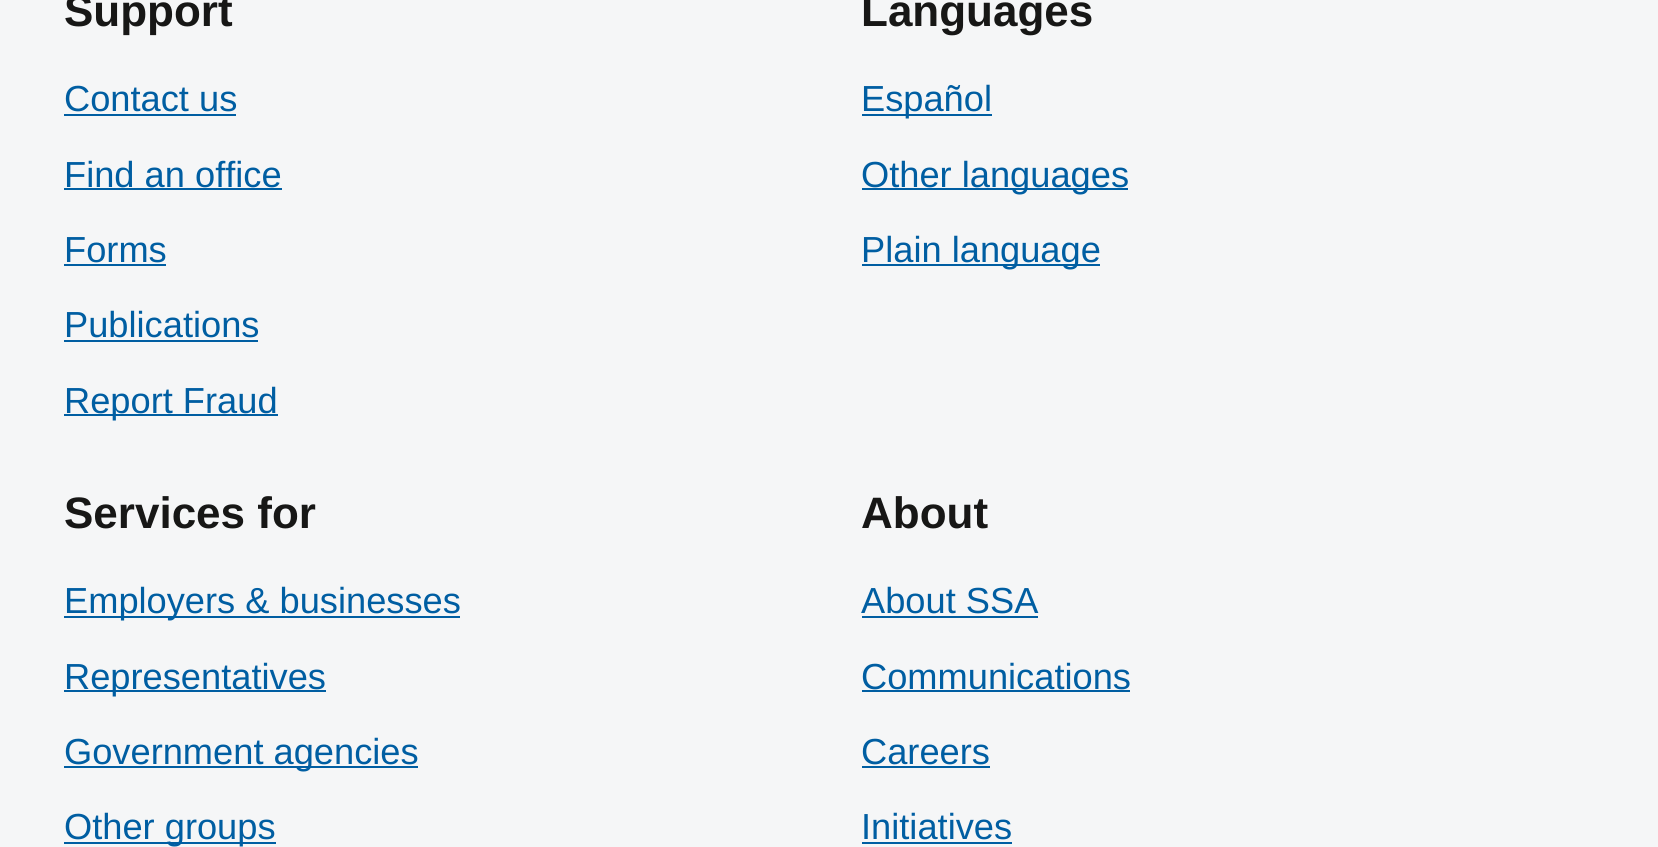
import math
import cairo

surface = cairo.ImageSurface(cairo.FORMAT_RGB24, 1658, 847)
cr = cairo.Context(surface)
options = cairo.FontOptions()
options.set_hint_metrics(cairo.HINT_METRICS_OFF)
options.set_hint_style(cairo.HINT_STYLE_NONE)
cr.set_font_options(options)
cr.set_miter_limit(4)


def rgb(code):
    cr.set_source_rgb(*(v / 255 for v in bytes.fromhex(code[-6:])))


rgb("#f5f6f7")
cr.paint()
for x, y, w, h, color in [
    (64, 114, 172, 2, "#005ea2"),
    (64, 188, 218, 2, "#005ea2"),
    (64, 264, 102, 2, "#005ea2"),
    (64, 340, 194, 2, "#005ea2"),
    (64, 414, 214, 2, "#005ea2"),
    (862, 114, 130, 2, "#005ea2"),
    (862, 188, 266, 2, "#005ea2"),
    (862, 264, 238, 2, "#005ea2"),
    (64, 616, 396, 2, "#005ea2"),
    (64, 690, 262, 2, "#005ea2"),
    (64, 766, 354, 2, "#005ea2"),
    (64, 842, 212, 2, "#005ea2"),
    (862, 616, 176, 2, "#005ea2"),
    (862, 690, 268, 2, "#005ea2"),
    (862, 766, 128, 2, "#005ea2"),
    (862, 842, 150, 2, "#005ea2"),
]:
    rgb(color)
    cr.rectangle(x, y, w, h)
    cr.fill()
cr.select_font_face("Liberation Sans", cairo.FONT_SLANT_NORMAL, cairo.FONT_WEIGHT_BOLD)
cr.set_font_size(44)
rgb("#171716")
cr.move_to(64, 26)
cr.show_text("Support")
cr.select_font_face("Liberation Sans")
cr.set_font_size(36.25)
rgb("#005ea2")
for x, y, s in [
    (64, 111, "Contact us"),
    (64, 187, "Find an office"),
    (64, 262, "Forms"),
    (64, 337, "Publications"),
    (64, 413, "Report Fraud"),
]:
    cr.move_to(x, y)
    cr.show_text(s)
cr.select_font_face("Liberation Sans", cairo.FONT_SLANT_NORMAL, cairo.FONT_WEIGHT_BOLD)
cr.set_font_size(44)
rgb("#171716")
cr.move_to(861, 26)
cr.show_text("Languages")
cr.select_font_face("Liberation Sans")
cr.set_font_size(36.25)
rgb("#005ea2")
for x, y, s in [
    (861, 111, "Español"),
    (861, 187, "Other languages"),
    (861, 262, "Plain language"),
]:
    cr.move_to(x, y)
    cr.show_text(s)
cr.select_font_face("Liberation Sans", cairo.FONT_SLANT_NORMAL, cairo.FONT_WEIGHT_BOLD)
cr.set_font_size(44)
rgb("#171716")
cr.move_to(64, 528)
cr.show_text("Services for")
cr.select_font_face("Liberation Sans")
cr.set_font_size(36.25)
rgb("#005ea2")
for x, y, s in [
    (64, 613, "Employers & businesses"),
    (64, 689, "Representatives"),
    (64, 764, "Government agencies"),
    (64, 839, "Other groups"),
]:
    cr.move_to(x, y)
    cr.show_text(s)
cr.select_font_face("Liberation Sans", cairo.FONT_SLANT_NORMAL, cairo.FONT_WEIGHT_BOLD)
cr.set_font_size(44)
rgb("#171716")
cr.move_to(861, 528)
cr.show_text("About")
cr.select_font_face("Liberation Sans")
cr.set_font_size(36.25)
rgb("#005ea2")
for x, y, s in [
    (861, 613, "About SSA"),
    (861, 689, "Communications"),
    (861, 764, "Careers"),
    (861, 839, "Initiatives"),
]:
    cr.move_to(x, y)
    cr.show_text(s)
surface.write_to_png("page.png")
